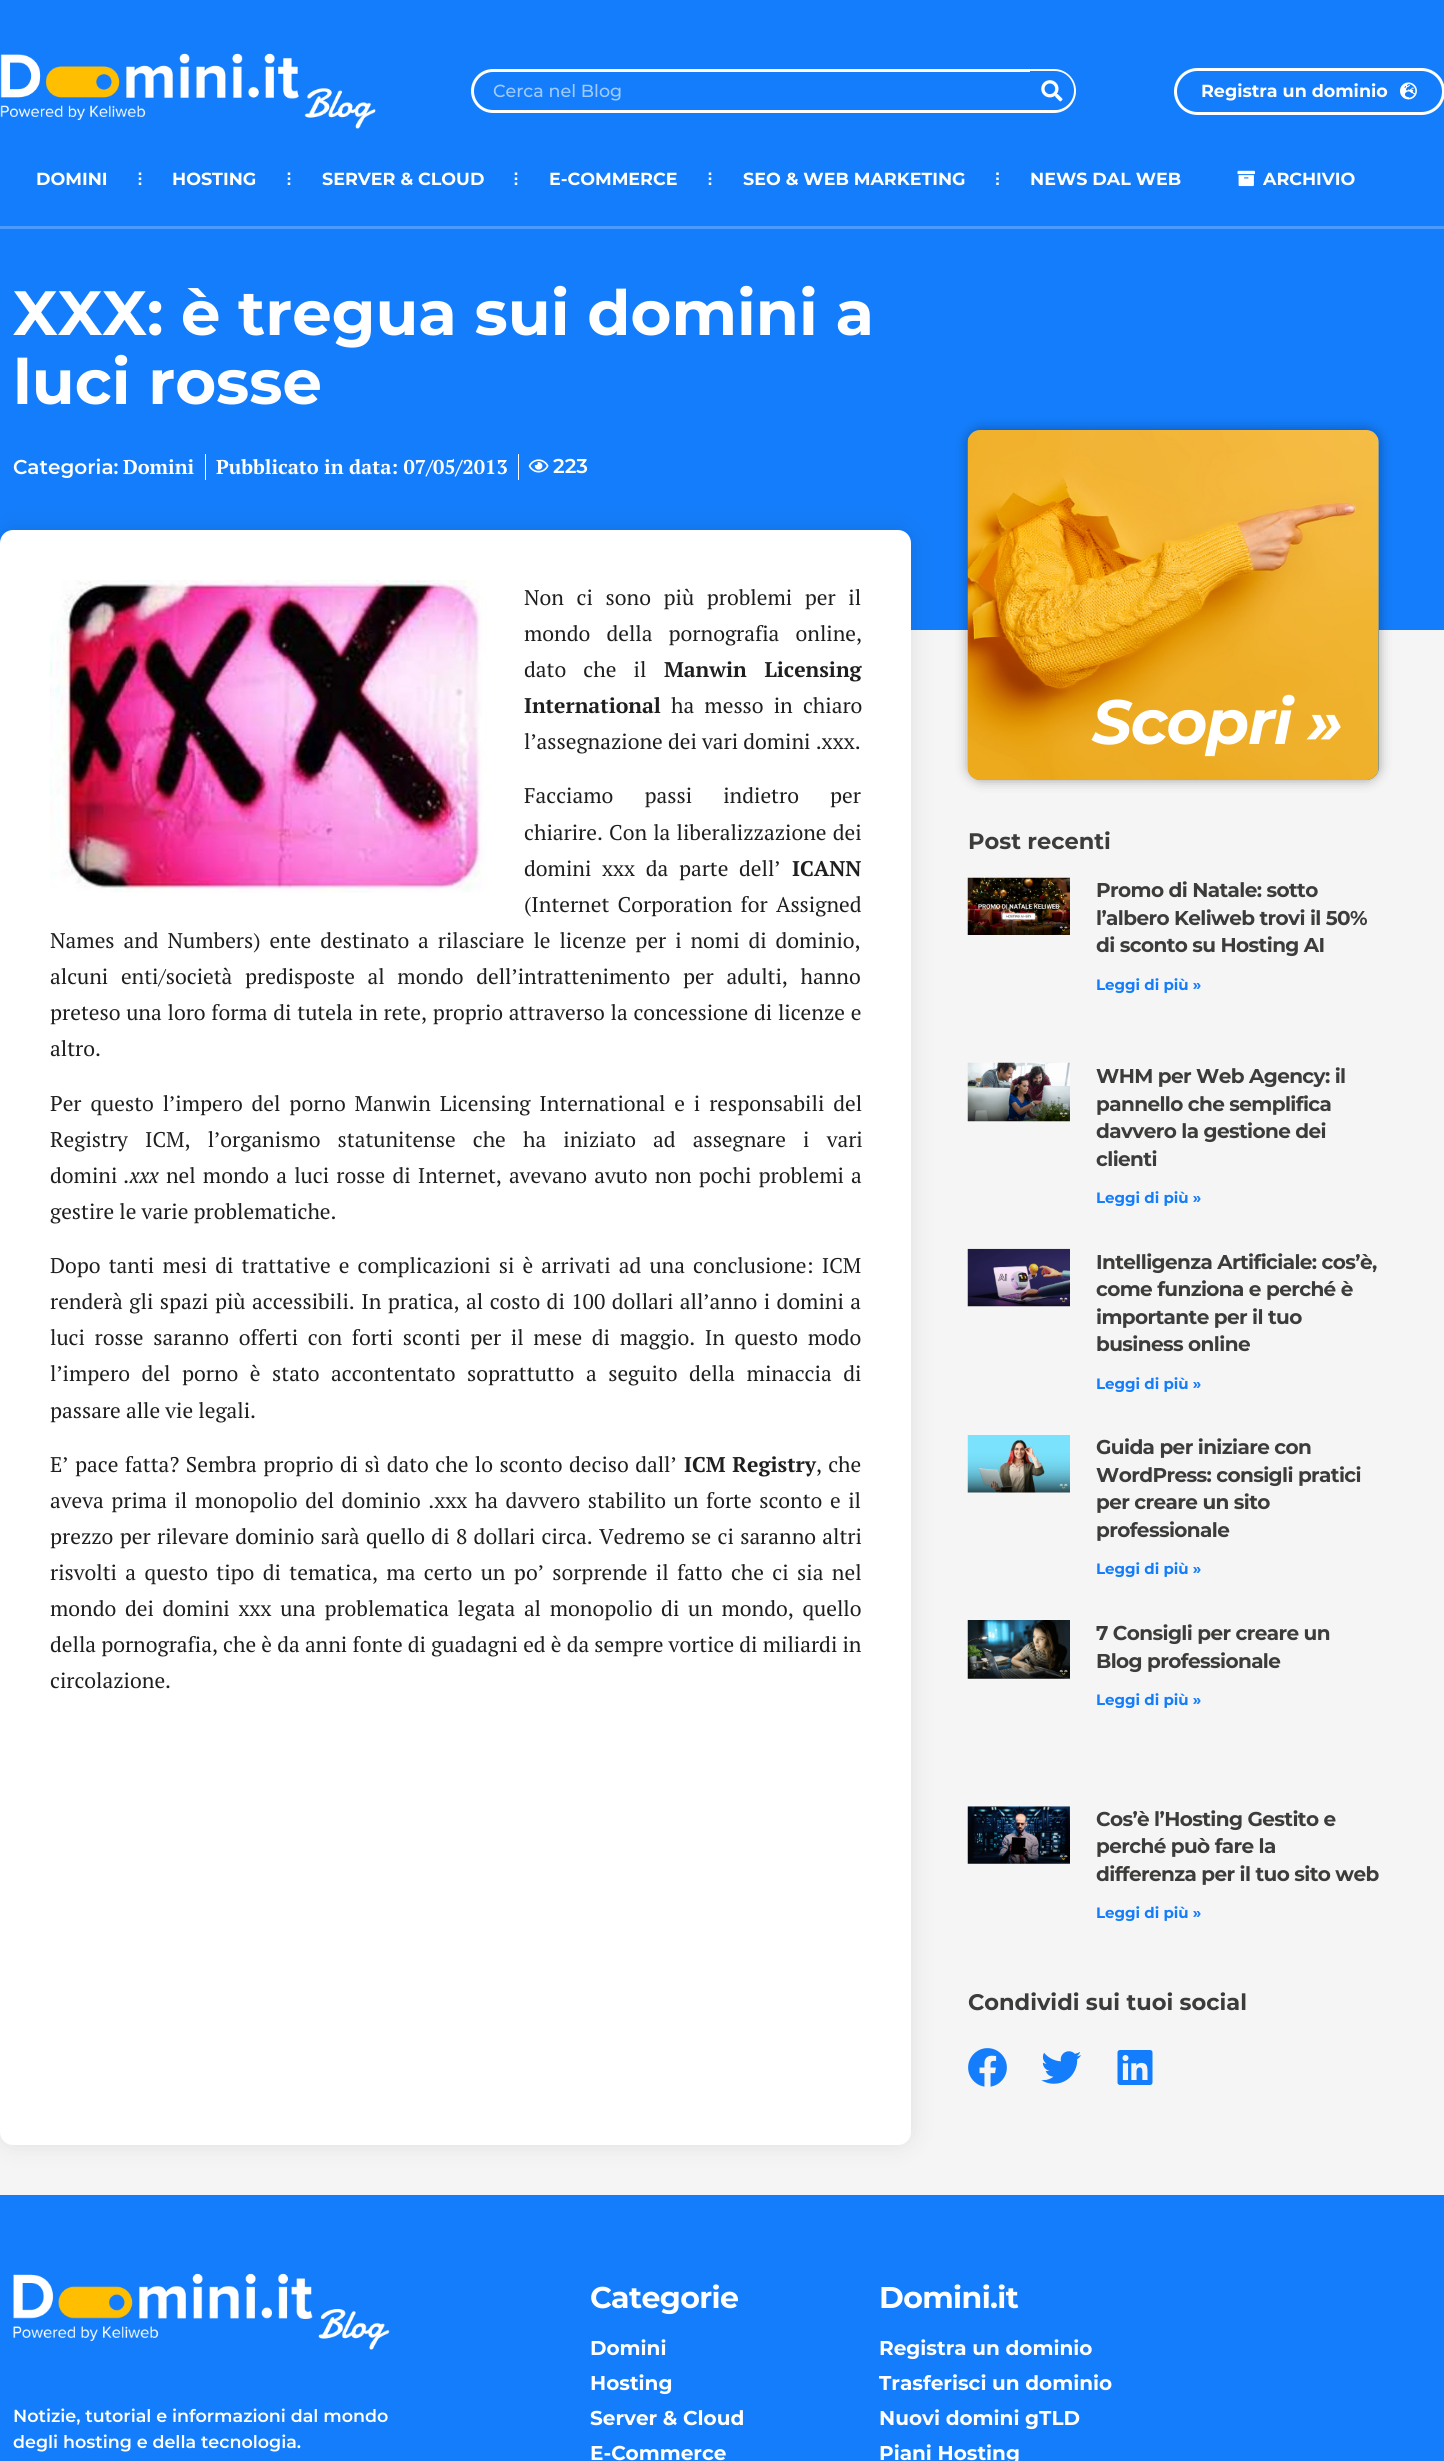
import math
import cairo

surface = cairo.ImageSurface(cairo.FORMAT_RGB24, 1444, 2461)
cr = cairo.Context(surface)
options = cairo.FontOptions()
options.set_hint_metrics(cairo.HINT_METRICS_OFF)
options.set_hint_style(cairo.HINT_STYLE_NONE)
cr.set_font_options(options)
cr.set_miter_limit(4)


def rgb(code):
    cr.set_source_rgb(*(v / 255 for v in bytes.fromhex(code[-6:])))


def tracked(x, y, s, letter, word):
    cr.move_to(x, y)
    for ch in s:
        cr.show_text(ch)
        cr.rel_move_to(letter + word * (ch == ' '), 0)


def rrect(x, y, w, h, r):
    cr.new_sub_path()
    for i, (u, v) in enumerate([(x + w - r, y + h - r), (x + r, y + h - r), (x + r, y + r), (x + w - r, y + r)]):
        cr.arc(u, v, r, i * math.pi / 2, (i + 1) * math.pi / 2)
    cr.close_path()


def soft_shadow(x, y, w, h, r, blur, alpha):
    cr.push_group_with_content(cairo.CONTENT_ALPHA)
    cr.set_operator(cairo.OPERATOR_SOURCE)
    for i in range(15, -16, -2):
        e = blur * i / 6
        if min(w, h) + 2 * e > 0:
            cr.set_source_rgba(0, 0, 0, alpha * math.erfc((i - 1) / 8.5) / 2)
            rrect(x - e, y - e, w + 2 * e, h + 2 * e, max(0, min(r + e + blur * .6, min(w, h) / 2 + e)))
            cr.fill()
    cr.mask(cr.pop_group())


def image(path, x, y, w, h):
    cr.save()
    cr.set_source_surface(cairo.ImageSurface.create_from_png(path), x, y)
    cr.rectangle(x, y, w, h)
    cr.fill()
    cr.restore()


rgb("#f5f5f5")
cr.paint()
rgb("#147dfb")
cr.rectangle(0, 0, 1444, 226)
cr.fill()
image("img/1.png", 0, 53, 376, 76)
rrect(472.5, 70.5, 602, 41, 20.5)
rgb("#ffffff")
cr.set_line_width(3)
cr.stroke()
rgb("#147dfb")
cr.new_path()
cr.move_to(1030, 71)
cr.line_to(1054.5, 71)
cr.curve_to(1065.5, 71, 1074, 79.5, 1074, 90.5)
cr.curve_to(1074, 101.5, 1065.5, 110, 1054.5, 110)
cr.line_to(1030, 110)
cr.close_path()
cr.fill()
image("img/2.png", 1041, 80, 22, 22)
rrect(1175.5, 69.5, 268, 44, 22)
rgb("#ffffff")
cr.stroke()
image("img/3.png", 1400, 82, 17, 18)
cr.new_path()
cr.move_to(140, 172.5)
cr.line_to(140, 175)
cr.move_to(140, 177.5)
cr.line_to(140, 180)
cr.move_to(140, 182.5)
cr.line_to(140, 185)
cr.set_line_width(2.5)
cr.stroke()
cr.new_path()
cr.move_to(289, 172.5)
cr.line_to(289, 175)
cr.move_to(289, 177.5)
cr.line_to(289, 180)
cr.move_to(289, 182.5)
cr.line_to(289, 185)
cr.stroke()
cr.new_path()
cr.move_to(516, 172.5)
cr.line_to(516, 175)
cr.move_to(516, 177.5)
cr.line_to(516, 180)
cr.move_to(516, 182.5)
cr.line_to(516, 185)
cr.stroke()
cr.new_path()
cr.move_to(710, 172.5)
cr.line_to(710, 175)
cr.move_to(710, 177.5)
cr.line_to(710, 180)
cr.move_to(710, 182.5)
cr.line_to(710, 185)
cr.stroke()
cr.new_path()
cr.move_to(997.5, 172.5)
cr.line_to(997.5, 175)
cr.move_to(997.5, 177.5)
cr.line_to(997.5, 180)
cr.move_to(997.5, 182.5)
cr.line_to(997.5, 185)
cr.stroke()
image("img/4.png", 1237, 170, 18, 17)
for x, y, w, h, color in [
    (0, 229, 1444, 401, "#147dfb"),
    (0, 226, 1444, 3, "#4a9bfc"),
    (205, 454, 1, 26, "#ffffff"),
    (518, 454, 1, 26, "#ffffff"),
]:
    rgb(color)
    cr.rectangle(x, y, w, h)
    cr.fill()
image("img/5.png", 528, 459, 21, 14)
rgb("#000000")
soft_shadow(0, 530, 911, 1615, 13, 12.5, 0.09)
rgb("#ffffff")
rrect(0, 530, 911, 1615, 13)
cr.fill()
image("img/6.png", 50, 580, 437, 313)
rgb("#000000")
soft_shadow(968, 430, 411, 350, 13, 6, 0.35)
rgb("#147dfb")
rrect(968, 430, 411, 350, 13)
cr.fill()
image("img/7.png", 967, 430, 412, 350)
image("img/8.png", 967, 877, 103, 58)
image("img/9.png", 967, 1062, 103, 60)
image("img/10.png", 967, 1248, 103, 59)
image("img/11.png", 967, 1435, 103, 58)
image("img/12.png", 967, 1620, 103, 59)
image("img/13.png", 967, 1806, 103, 58)
image("img/14.png", 968, 2048, 39, 39)
image("img/15.png", 1041, 2051, 41, 33)
image("img/16.png", 1117, 2050, 36, 35)
cr.rectangle(0, 2195, 1444, 266)
cr.fill()
image("img/17.png", 13, 2273, 377, 77)
cr.select_font_face("Montserrat Medium")
cr.set_font_size(17.5)
rgb("#a1cbfd")
cr.move_to(493, 97)
cr.show_text("Cerca nel Blog")
cr.select_font_face("Montserrat", cairo.FONT_SLANT_NORMAL, cairo.FONT_WEIGHT_BOLD)
rgb("#ffffff")
for x, y, s in [
    (1201, 97, "Registra un dominio"),
    (36, 185, "DOMINI"),
    (172, 185, "HOSTING"),
    (322, 185, "SERVER & CLOUD"),
    (549, 185, "E-COMMERCE"),
    (743, 185, "SEO & WEB MARKETING"),
    (1030, 185, "NEWS DAL WEB"),
    (1263, 185, "ARCHIVIO"),
]:
    cr.move_to(x, y)
    cr.show_text(s)
cr.set_font_size(62.5)
cr.move_to(13, 335)
cr.show_text("XXX: è tregua sui domini a")
cr.move_to(13, 404)
cr.show_text("luci rosse")
cr.select_font_face("Montserrat SemiBold")
cr.set_font_size(20)
cr.move_to(13, 474)
cr.show_text("Categoria:")
cr.select_font_face("PT Serif", cairo.FONT_SLANT_NORMAL, cairo.FONT_WEIGHT_BOLD)
cr.move_to(123, 474)
cr.show_text("Domini")
cr.move_to(216, 474)
cr.show_text("Pubblicato in data: 07/05/2013")
cr.select_font_face("Montserrat SemiBold")
cr.move_to(553, 473)
cr.show_text("223")
cr.select_font_face("PT Serif")
cr.set_font_size(21.25)
rgb("#1f1f1f")
tracked(524, 605, "Non ci sono più problemi per il", 0, 7.5)
tracked(524, 641, "mondo della pornografia online,", 0, 11)
tracked(524, 677, "dato che il", 0, 12)
cr.select_font_face("PT Serif", cairo.FONT_SLANT_NORMAL, cairo.FONT_WEIGHT_BOLD)
tracked(664, 677, "Manwin Licensing", 0, 12)
cr.move_to(524, 713)
cr.show_text("International")
cr.select_font_face("PT Serif")
tracked(671, 713, "ha messo in chiaro", 0, 5)
cr.move_to(524, 749)
cr.show_text("l’assegnazione dei vari domini .xxx.")
tracked(524, 803, "Facciamo passi indietro per", 0, 26)
tracked(524, 840, "chiarire. Con la liberalizzazione dei", 0, 1)
tracked(524, 876, "domini xxx da parte dell’", 0, 5.5)
cr.select_font_face("PT Serif", cairo.FONT_SLANT_NORMAL, cairo.FONT_WEIGHT_BOLD)
cr.move_to(792, 876)
cr.show_text("ICANN")
cr.select_font_face("PT Serif")
tracked(524, 912, "(Internet Corporation for Assigned", 0, 3)
tracked(50, 948, "Names and Numbers) ente destinato a rilasciare le licenze per i nomi di dominio,", 0, 3.75)
tracked(50, 984, "alcuni enti/società predisposte al mondo dell’intrattenimento per adulti, hanno", 0, 7.5)
tracked(50, 1020, "preteso una loro forma di tutela in rete, proprio attraverso la concessione di licenze e", 0, 0.6)
cr.move_to(50, 1056)
cr.show_text("altro.")
tracked(50, 1111, "Per questo l’impero del porno Manwin Licensing International e i responsabili del", 0, 3.75)
tracked(50, 1147, "Registry ICM, l’organismo statunitense che ha iniziato ad assegnare i vari", 0, 12)
cr.move_to(50, 1183)
cr.show_text("domini")
cr.select_font_face("PT Serif", cairo.FONT_SLANT_ITALIC)
cr.move_to(124, 1183)
cr.show_text(".xxx")
cr.select_font_face("PT Serif")
tracked(166, 1183, "nel mondo a luci rosse di Internet, avevano avuto non pochi problemi a", 0, 2)
cr.move_to(50, 1219)
cr.show_text("gestire le varie problematiche.")
tracked(50, 1273, "Dopo tanti mesi di trattative e complicazioni si è arrivati ad una conclusione: ICM", 0, 3)
tracked(50, 1309, "renderà gli spazi più accessibili. In pratica, al costo di 100 dollari all’anno i domini a", 0, 1.3)
tracked(50, 1345, "luci rosse saranno offerti con forti sconti per il mese di maggio. In questo modo", 0, 4.5)
tracked(50, 1381, "l’impero del porno è stato accontentato soprattutto a seguito della minaccia di", 0, 6.4)
cr.move_to(50, 1418)
cr.show_text("passare alle vie legali.")
tracked(50, 1472, "E’ pace fatta? Sembra proprio di sì dato che lo sconto deciso dall’", 0, 1.3)
cr.select_font_face("PT Serif", cairo.FONT_SLANT_NORMAL, cairo.FONT_WEIGHT_BOLD)
tracked(684, 1472, "ICM Registry", 0, 1)
cr.select_font_face("PT Serif")
tracked(816, 1472, ", che", 0, 1)
tracked(50, 1508, "aveva prima il monopolio del dominio .xxx ha davvero stabilito un forte sconto e il", 0, 2.4)
tracked(50, 1544, "prezzo per rilevare dominio sarà quello di 8 dollari circa. Vedremo se ci saranno altri", 0, 1.2)
tracked(50, 1580, "risvolti a questo tipo di tematica, ma certo un po’ sorprende il fatto che ci sia nel", 0, 3.25)
tracked(50, 1616, "mondo dei domini xxx una problematica legata al monopolio di un mondo, quello", 0, 3.5)
cr.move_to(50, 1652)
cr.show_text("della pornografia, che è da anni fonte di guadagni ed è da sempre vortice di miliardi in")
cr.move_to(50, 1688)
cr.show_text("circolazione.")
cr.select_font_face("Montserrat", cairo.FONT_SLANT_ITALIC, cairo.FONT_WEIGHT_BOLD)
cr.set_font_size(62.5)
rgb("#ffffff")
tracked(1092, 744, "Scopri »", -1.25, 0)
cr.select_font_face("Montserrat", cairo.FONT_SLANT_NORMAL, cairo.FONT_WEIGHT_BOLD)
cr.set_font_size(22.5)
rgb("#3c3c3b")
cr.move_to(968, 849)
cr.show_text("Post recenti")
cr.set_font_size(20)
for x, y, s in [
    (1096, 897, "Promo di Natale: sotto"),
    (1096, 925, "l’albero Keliweb trovi il 50%"),
    (1096, 952, "di sconto su Hosting AI"),
]:
    tracked(x, y, s, -0.6, 0)
cr.set_font_size(15)
rgb("#147dfb")
cr.move_to(1096, 990)
cr.show_text("Leggi di più »")
cr.set_font_size(20)
rgb("#3c3c3b")
for x, y, s in [
    (1096, 1083, "WHM per Web Agency: il"),
    (1096, 1111, "pannello che semplifica"),
    (1096, 1138, "davvero la gestione dei"),
    (1096, 1166, "clienti"),
]:
    tracked(x, y, s, -0.6, 0)
cr.set_font_size(15)
rgb("#147dfb")
cr.move_to(1096, 1203)
cr.show_text("Leggi di più »")
cr.set_font_size(20)
rgb("#3c3c3b")
for x, y, s in [
    (1096, 1269, "Intelligenza Artificiale: cos’è,"),
    (1096, 1296, "come funziona e perché è"),
    (1096, 1324, "importante per il tuo"),
    (1096, 1351, "business online"),
]:
    tracked(x, y, s, -0.6, 0)
cr.set_font_size(15)
rgb("#147dfb")
cr.move_to(1096, 1389)
cr.show_text("Leggi di più »")
cr.set_font_size(20)
rgb("#3c3c3b")
for x, y, s in [
    (1096, 1454, "Guida per iniziare con"),
    (1096, 1482, "WordPress: consigli pratici"),
    (1096, 1509, "per creare un sito"),
    (1096, 1537, "professionale"),
]:
    tracked(x, y, s, -0.6, 0)
cr.set_font_size(15)
rgb("#147dfb")
cr.move_to(1096, 1574)
cr.show_text("Leggi di più »")
cr.set_font_size(20)
rgb("#3c3c3b")
tracked(1096, 1640, "7 Consigli per creare un", -0.6, 0)
tracked(1096, 1668, "Blog professionale", -0.6, 0)
cr.set_font_size(15)
rgb("#147dfb")
cr.move_to(1096, 1705)
cr.show_text("Leggi di più »")
cr.set_font_size(20)
rgb("#3c3c3b")
for x, y, s in [
    (1096, 1826, "Cos’è l’Hosting Gestito e"),
    (1096, 1853, "perché può fare la"),
    (1096, 1881, "differenza per il tuo sito web"),
]:
    tracked(x, y, s, -0.6, 0)
cr.set_font_size(15)
rgb("#147dfb")
cr.move_to(1096, 1918)
cr.show_text("Leggi di più »")
cr.set_font_size(22.5)
rgb("#3c3c3b")
cr.move_to(968, 2010)
cr.show_text("Condividi sui tuoi social")
cr.select_font_face("Montserrat SemiBold")
cr.set_font_size(17.5)
rgb("#ffffff")
cr.move_to(13, 2422)
cr.show_text("Notizie, tutorial e informazioni dal mondo")
cr.move_to(13, 2448)
cr.show_text("degli hosting e della tecnologia.")
cr.select_font_face("Montserrat", cairo.FONT_SLANT_NORMAL, cairo.FONT_WEIGHT_BOLD)
cr.set_font_size(30)
tracked(590, 2308, "Categorie", -0.6, 0)
cr.set_font_size(20)
for x, y, s in [
    (590, 2355, "Domini"),
    (590, 2390, "Hosting"),
    (590, 2425, "Server & Cloud"),
    (590, 2460, "E-Commerce"),
]:
    cr.move_to(x, y)
    cr.show_text(s)
cr.set_font_size(30)
tracked(879, 2308, "Domini.it", -0.6, 0)
cr.set_font_size(20)
for x, y, s in [
    (879, 2355, "Registra un dominio"),
    (879, 2390, "Trasferisci un dominio"),
    (879, 2425, "Nuovi domini gTLD"),
    (879, 2460, "Piani Hosting"),
]:
    cr.move_to(x, y)
    cr.show_text(s)
surface.write_to_png("page.png")
